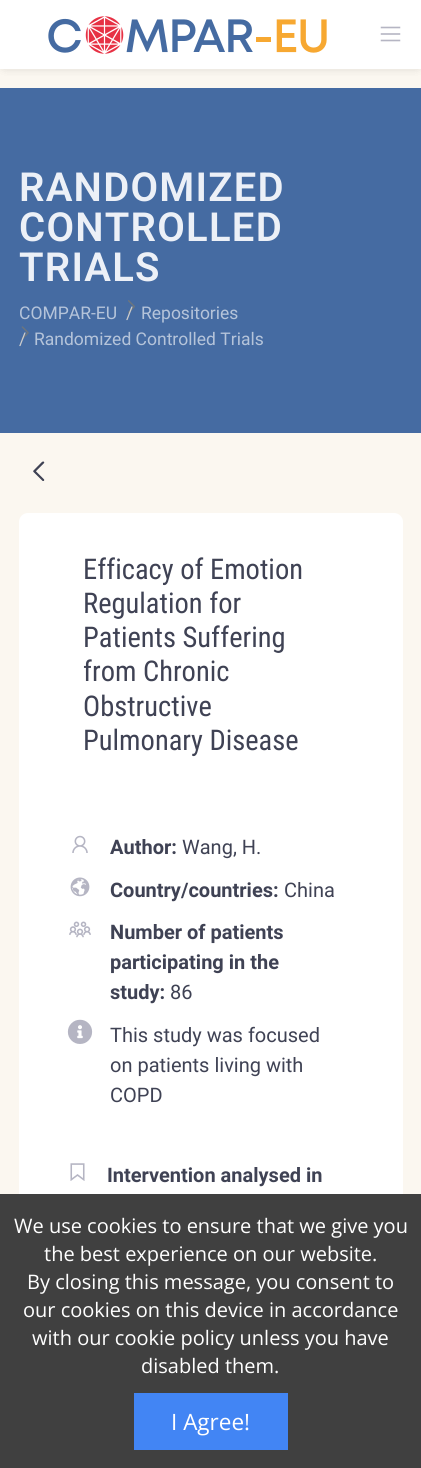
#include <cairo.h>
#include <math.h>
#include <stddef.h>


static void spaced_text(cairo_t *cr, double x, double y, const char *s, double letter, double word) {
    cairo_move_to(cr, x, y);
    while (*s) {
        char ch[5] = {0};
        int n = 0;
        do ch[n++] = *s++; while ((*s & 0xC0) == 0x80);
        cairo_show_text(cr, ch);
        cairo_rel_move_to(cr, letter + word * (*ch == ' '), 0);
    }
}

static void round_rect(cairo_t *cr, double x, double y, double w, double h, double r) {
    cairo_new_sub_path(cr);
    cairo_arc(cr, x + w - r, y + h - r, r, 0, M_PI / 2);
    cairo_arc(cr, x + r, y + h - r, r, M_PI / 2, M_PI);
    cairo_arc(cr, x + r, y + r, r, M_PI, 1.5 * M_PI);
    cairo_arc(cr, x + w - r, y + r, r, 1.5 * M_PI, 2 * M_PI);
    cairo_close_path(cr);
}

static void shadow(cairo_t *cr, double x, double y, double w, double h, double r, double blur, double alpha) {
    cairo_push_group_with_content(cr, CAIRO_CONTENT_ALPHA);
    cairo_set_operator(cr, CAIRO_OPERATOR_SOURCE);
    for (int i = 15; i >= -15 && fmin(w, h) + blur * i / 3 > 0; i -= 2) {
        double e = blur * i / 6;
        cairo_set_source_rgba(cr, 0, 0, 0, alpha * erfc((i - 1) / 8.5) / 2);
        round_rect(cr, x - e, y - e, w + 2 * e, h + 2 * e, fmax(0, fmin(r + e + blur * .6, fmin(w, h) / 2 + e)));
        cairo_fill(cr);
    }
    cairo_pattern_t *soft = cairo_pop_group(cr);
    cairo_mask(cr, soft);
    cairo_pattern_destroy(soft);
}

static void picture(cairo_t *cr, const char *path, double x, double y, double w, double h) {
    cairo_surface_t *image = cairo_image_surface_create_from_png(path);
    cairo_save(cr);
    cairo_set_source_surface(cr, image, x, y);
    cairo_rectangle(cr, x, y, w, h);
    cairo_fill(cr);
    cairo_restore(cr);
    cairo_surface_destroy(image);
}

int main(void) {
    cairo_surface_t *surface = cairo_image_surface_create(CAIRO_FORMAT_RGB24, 421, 1468);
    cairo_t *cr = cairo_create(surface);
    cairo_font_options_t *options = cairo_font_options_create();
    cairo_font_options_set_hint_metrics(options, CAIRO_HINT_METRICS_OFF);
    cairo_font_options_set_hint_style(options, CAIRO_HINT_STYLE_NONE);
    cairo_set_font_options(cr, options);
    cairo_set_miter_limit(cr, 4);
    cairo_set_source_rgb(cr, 0.984, 0.965, 0.941);
    cairo_paint(cr);
    cairo_set_source_rgb(cr, 0, 0, 0);
    shadow(cr, 4, 5, 414, 61, 0, 5.5, 0.1);
    shadow(cr, 4, 5, 414, 61, 0, 5.5, 0.1);
    cairo_set_source_rgb(cr, 1, 1, 1);
    cairo_rectangle(cr, 0, 0, 421, 69);
    cairo_fill(cr);
    picture(cr, "img1.png", 48, 16, 279, 38);
    picture(cr, "img2.png", 380, 26, 21, 16);
    cairo_set_source_rgb(cr, 0.271, 0.42, 0.635);
    cairo_rectangle(cr, 0, 88, 421, 345);
    cairo_fill(cr);
    cairo_select_font_face(cr, "Roboto SemiBold", CAIRO_FONT_SLANT_NORMAL, CAIRO_FONT_WEIGHT_NORMAL);
    cairo_set_font_size(cr, 40);
    cairo_set_source_rgb(cr, 0.925, 0.941, 0.965);
    spaced_text(cr, 19, 201, "RANDOMIZED", 1.25, 0);
    spaced_text(cr, 19, 241, "CONTROLLED", 1.25, 0);
    spaced_text(cr, 19, 281, "TRIALS", 1.25, 0);
    cairo_select_font_face(cr, "Roboto", CAIRO_FONT_SLANT_NORMAL, CAIRO_FONT_WEIGHT_NORMAL);
    cairo_set_font_size(cr, 17.5);
    cairo_set_source_rgb(cr, 0.71, 0.769, 0.855);
    cairo_move_to(cr, 19, 319);
    cairo_show_text(cr, "COMPAR-EU");
    picture(cr, "img3.png", 128, 300, 7, 13);
    cairo_set_source_rgb(cr, 0.8, 0.8, 0.8);
    cairo_move_to(cr, 126, 319);
    cairo_show_text(cr, "/");
    cairo_set_source_rgb(cr, 0.71, 0.769, 0.855);
    cairo_move_to(cr, 141, 319);
    cairo_show_text(cr, "Repositories");
    picture(cr, "img4.png", 21, 326, 8, 14);
    cairo_set_source_rgb(cr, 0.8, 0.8, 0.8);
    cairo_move_to(cr, 19, 345);
    cairo_show_text(cr, "/");
    cairo_set_source_rgb(cr, 0.71, 0.769, 0.855);
    cairo_move_to(cr, 34, 345);
    cairo_show_text(cr, "Randomized Controlled Trials");
    picture(cr, "img5.png", 33, 461, 12, 20);
    cairo_set_source_rgb(cr, 1, 1, 1);
    round_rect(cr, 19, 513, 384, 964, 9);
    cairo_fill(cr);
    cairo_select_font_face(cr, "Roboto Condensed", CAIRO_FONT_SLANT_NORMAL, CAIRO_FONT_WEIGHT_NORMAL);
    cairo_set_font_size(cr, 28.5);
    cairo_set_source_rgb(cr, 0.247, 0.259, 0.329);
    cairo_move_to(cr, 83, 579);
    cairo_show_text(cr, "Efficacy of Emotion");
    cairo_move_to(cr, 83, 613);
    cairo_show_text(cr, "Regulation for");
    cairo_move_to(cr, 83, 647);
    cairo_show_text(cr, "Patients Suffering");
    cairo_move_to(cr, 83, 681);
    cairo_show_text(cr, "from Chronic");
    cairo_move_to(cr, 83, 716);
    cairo_show_text(cr, "Obstructive");
    cairo_move_to(cr, 83, 750);
    cairo_show_text(cr, "Pulmonary Disease");
    picture(cr, "img6.png", 72, 835, 16, 18);
    cairo_select_font_face(cr, "Roboto", CAIRO_FONT_SLANT_NORMAL, CAIRO_FONT_WEIGHT_BOLD);
    cairo_set_font_size(cr, 20);
    cairo_move_to(cr, 110, 854);
    cairo_show_text(cr, "Author:");
    cairo_select_font_face(cr, "Roboto", CAIRO_FONT_SLANT_NORMAL, CAIRO_FONT_WEIGHT_NORMAL);
    cairo_move_to(cr, 182, 854);
    cairo_show_text(cr, "Wang, H.");
    picture(cr, "img7.png", 70, 877, 20, 20);
    cairo_select_font_face(cr, "Roboto", CAIRO_FONT_SLANT_NORMAL, CAIRO_FONT_WEIGHT_BOLD);
    cairo_move_to(cr, 110, 897);
    cairo_show_text(cr, "Country/countries:");
    cairo_select_font_face(cr, "Roboto", CAIRO_FONT_SLANT_NORMAL, CAIRO_FONT_WEIGHT_NORMAL);
    cairo_move_to(cr, 284, 897);
    cairo_show_text(cr, "China");
    picture(cr, "img8.png", 69, 921, 22, 17);
    cairo_select_font_face(cr, "Roboto", CAIRO_FONT_SLANT_NORMAL, CAIRO_FONT_WEIGHT_BOLD);
    cairo_move_to(cr, 110, 939);
    cairo_show_text(cr, "Number of patients");
    cairo_move_to(cr, 110, 969);
    cairo_show_text(cr, "participating in the");
    cairo_move_to(cr, 110, 999);
    cairo_show_text(cr, "study:");
    cairo_select_font_face(cr, "Roboto", CAIRO_FONT_SLANT_NORMAL, CAIRO_FONT_WEIGHT_NORMAL);
    cairo_move_to(cr, 170, 999);
    cairo_show_text(cr, "86");
    picture(cr, "img9.png", 67, 1019, 26, 25);
    cairo_move_to(cr, 110, 1042);
    cairo_show_text(cr, "This study was focused");
    cairo_move_to(cr, 110, 1072);
    cairo_show_text(cr, "on patients living with");
    cairo_move_to(cr, 110, 1102);
    cairo_show_text(cr, "COPD");
    picture(cr, "img10.png", 70, 1163, 15, 18);
    cairo_select_font_face(cr, "Roboto", CAIRO_FONT_SLANT_NORMAL, CAIRO_FONT_WEIGHT_BOLD);
    cairo_move_to(cr, 107, 1182);
    cairo_show_text(cr, "Intervention analysed in");
    cairo_set_source_rgb(cr, 0.251, 0.251, 0.251);
    cairo_rectangle(cr, 0, 1194, 421, 274);
    cairo_fill(cr);
    cairo_select_font_face(cr, "Open Sans", CAIRO_FONT_SLANT_NORMAL, CAIRO_FONT_WEIGHT_NORMAL);
    cairo_set_source_rgb(cr, 1, 1, 1);
    cairo_move_to(cr, 14, 1233);
    cairo_show_text(cr, "We use cookies to ensure that we give you");
    cairo_move_to(cr, 44, 1261);
    cairo_show_text(cr, "the best experience on our website.");
    cairo_move_to(cr, 27, 1289);
    cairo_show_text(cr, "By closing this message, you consent to");
    cairo_move_to(cr, 23, 1317);
    cairo_show_text(cr, "our cookies on this device in accordance");
    cairo_move_to(cr, 32, 1345);
    cairo_show_text(cr, "with our cookie policy unless you have");
    cairo_move_to(cr, 141, 1373);
    cairo_show_text(cr, "disabled them.");
    cairo_set_source_rgb(cr, 0.259, 0.522, 0.957);
    cairo_rectangle(cr, 134, 1393, 154, 57);
    cairo_fill(cr);
    cairo_set_font_size(cr, 22.5);
    cairo_set_source_rgb(cr, 1, 1, 1);
    cairo_move_to(cr, 171, 1430);
    cairo_show_text(cr, "I Agree!");
    cairo_surface_write_to_png(surface, "page.png");
    cairo_font_options_destroy(options);
    cairo_destroy(cr);
    cairo_surface_destroy(surface);
    return 0;
}
